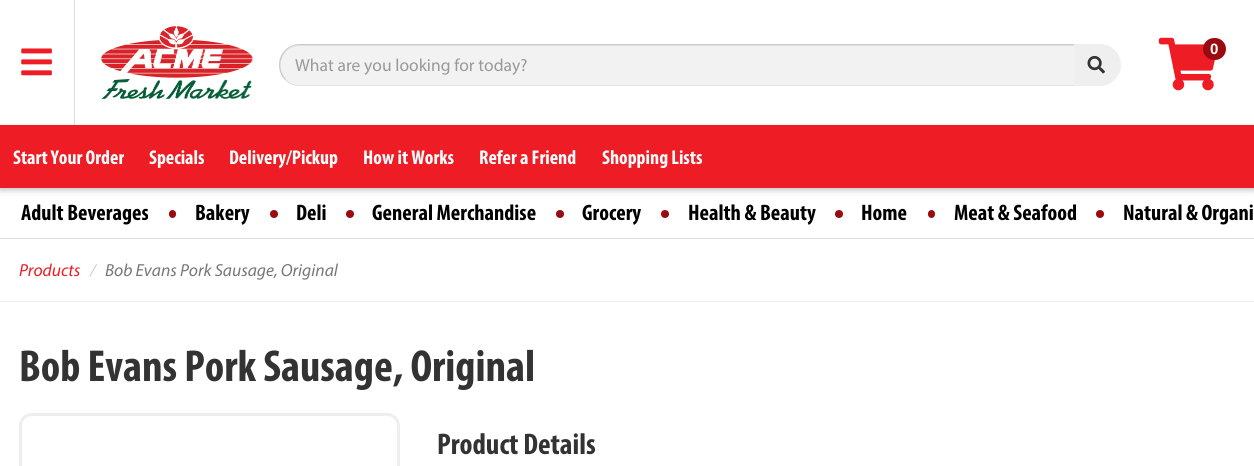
#include <cairo.h>
#include <math.h>
#include <stddef.h>


static void round_rect(cairo_t *cr, double x, double y, double w, double h, double r) {
    cairo_new_sub_path(cr);
    cairo_arc(cr, x + w - r, y + h - r, r, 0, M_PI / 2);
    cairo_arc(cr, x + r, y + h - r, r, M_PI / 2, M_PI);
    cairo_arc(cr, x + r, y + r, r, M_PI, 1.5 * M_PI);
    cairo_arc(cr, x + w - r, y + r, r, 1.5 * M_PI, 2 * M_PI);
    cairo_close_path(cr);
}

static void shadow(cairo_t *cr, double x, double y, double w, double h, double r, double blur, double alpha) {
    cairo_push_group_with_content(cr, CAIRO_CONTENT_ALPHA);
    cairo_set_operator(cr, CAIRO_OPERATOR_SOURCE);
    for (int i = 15; i >= -15 && fmin(w, h) + blur * i / 3 > 0; i -= 2) {
        double e = blur * i / 6;
        cairo_set_source_rgba(cr, 0, 0, 0, alpha * erfc((i - 1) / 8.5) / 2);
        round_rect(cr, x - e, y - e, w + 2 * e, h + 2 * e, fmax(0, fmin(r + e + blur * .6, fmin(w, h) / 2 + e)));
        cairo_fill(cr);
    }
    cairo_pattern_t *soft = cairo_pop_group(cr);
    cairo_mask(cr, soft);
    cairo_pattern_destroy(soft);
}

static void picture(cairo_t *cr, const char *path, double x, double y, double w, double h) {
    cairo_surface_t *image = cairo_image_surface_create_from_png(path);
    cairo_save(cr);
    cairo_set_source_surface(cr, image, x, y);
    cairo_rectangle(cr, x, y, w, h);
    cairo_fill(cr);
    cairo_restore(cr);
    cairo_surface_destroy(image);
}

int main(void) {
    cairo_surface_t *surface = cairo_image_surface_create(CAIRO_FORMAT_RGB24, 1254, 466);
    cairo_t *cr = cairo_create(surface);
    cairo_font_options_t *options = cairo_font_options_create();
    cairo_font_options_set_hint_metrics(options, CAIRO_HINT_METRICS_OFF);
    cairo_font_options_set_hint_style(options, CAIRO_HINT_STYLE_NONE);
    cairo_set_font_options(cr, options);
    cairo_set_miter_limit(cr, 4);
    cairo_set_source_rgb(cr, 1, 1, 1);
    cairo_paint(cr);
    cairo_set_source_rgb(cr, 0, 0, 0);
    shadow(cr, 0, 128, 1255, 62, 0, 3, 0.25);
    cairo_set_source_rgb(cr, 0.867, 0.867, 0.867);
    cairo_rectangle(cr, 74, 0, 1, 125);
    cairo_fill(cr);
    picture(cr, "img1.png", 21, 48, 31, 28);
    picture(cr, "img2.png", 101, 26, 152, 73);
    picture(cr, "img3.png", 1158, 37, 57, 54);
    cairo_set_source_rgb(cr, 0.6, 0.043, 0.067);
    round_rect(cr, 1203, 38, 23, 22, 11);
    cairo_fill(cr);
    cairo_select_font_face(cr, "Liberation Sans", CAIRO_FONT_SLANT_NORMAL, CAIRO_FONT_WEIGHT_BOLD);
    cairo_set_font_size(cr, 15);
    cairo_set_source_rgb(cr, 1, 1, 1);
    cairo_move_to(cr, 1210, 54);
    cairo_show_text(cr, "0");
    cairo_set_source_rgb(cr, 0.949, 0.949, 0.949);
    cairo_new_path(cr);
    cairo_move_to(cr, 300, 44);
    cairo_line_to(cr, 1075, 44);
    cairo_line_to(cr, 1075, 86);
    cairo_line_to(cr, 300, 86);
    cairo_curve_to(cr, 288.5, 86, 279, 76.5, 279, 65);
    cairo_curve_to(cr, 279, 53.5, 288.5, 44, 300, 44);
    cairo_close_path(cr);
    cairo_fill(cr);
    cairo_set_source_rgb(cr, 0.878, 0.878, 0.878);
    cairo_new_path(cr);
    cairo_move_to(cr, 300, 46);
    cairo_line_to(cr, 1074, 46);
    cairo_line_to(cr, 1074, 45);
    cairo_line_to(cr, 300, 45);
    cairo_curve_to(cr, 286, 45, 276, 60, 281, 72);
    cairo_curve_to(cr, 278, 61, 284, 46, 300, 46);
    cairo_close_path(cr);
    cairo_fill(cr);
    cairo_set_source_rgb(cr, 0.8, 0.8, 0.8);
    cairo_new_path(cr);
    cairo_move_to(cr, 300, 44);
    cairo_curve_to(cr, 294, 44, 289, 46, 285, 50);
    cairo_line_to(cr, 286, 51);
    cairo_curve_to(cr, 289, 47, 294, 45, 300, 45);
    cairo_line_to(cr, 1074, 45);
    cairo_line_to(cr, 1075, 44);
    cairo_close_path(cr);
    cairo_fill(cr);
    cairo_set_source_rgb(cr, 0.886, 0.886, 0.886);
    cairo_new_path(cr);
    cairo_move_to(cr, 1075, 86);
    cairo_line_to(cr, 300, 86);
    cairo_curve_to(cr, 294, 86, 289, 84, 285, 80);
    cairo_line_to(cr, 286, 79);
    cairo_curve_to(cr, 289, 83, 294, 85, 300, 85);
    cairo_line_to(cr, 1074, 85);
    cairo_close_path(cr);
    cairo_fill(cr);
    cairo_set_source_rgb(cr, 0.8, 0.8, 0.8);
    cairo_new_path(cr);
    cairo_move_to(cr, 285, 50);
    cairo_curve_to(cr, 277, 58, 277, 72, 285, 80);
    cairo_line_to(cr, 286, 79);
    cairo_curve_to(cr, 278.5, 71.5, 278.5, 58.5, 286, 51);
    cairo_close_path(cr);
    cairo_fill(cr);
    cairo_select_font_face(cr, "Myriad", CAIRO_FONT_SLANT_NORMAL, CAIRO_FONT_WEIGHT_NORMAL);
    cairo_set_font_size(cr, 17.5);
    cairo_set_source_rgb(cr, 0.6, 0.6, 0.6);
    cairo_move_to(cr, 295, 71);
    cairo_show_text(cr, "What are you looking for today?");
    cairo_set_source_rgb(cr, 0.937, 0.937, 0.937);
    cairo_new_path(cr);
    cairo_move_to(cr, 1074, 44);
    cairo_line_to(cr, 1100, 44);
    cairo_curve_to(cr, 1111.5, 44, 1121, 53.5, 1121, 65);
    cairo_curve_to(cr, 1121, 76.5, 1111.5, 86, 1100, 86);
    cairo_line_to(cr, 1074, 86);
    cairo_close_path(cr);
    cairo_fill(cr);
    picture(cr, "img4.png", 1087, 55, 18, 19);
    cairo_set_source_rgb(cr, 0.933, 0.11, 0.141);
    cairo_rectangle(cr, 0, 125, 1254, 63);
    cairo_fill(cr);
    cairo_select_font_face(cr, "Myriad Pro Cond", CAIRO_FONT_SLANT_NORMAL, CAIRO_FONT_WEIGHT_BOLD);
    cairo_set_font_size(cr, 20);
    cairo_set_source_rgb(cr, 1, 1, 1);
    cairo_move_to(cr, 13, 164);
    cairo_show_text(cr, "Start Your Order");
    cairo_move_to(cr, 149, 164);
    cairo_show_text(cr, "Specials");
    cairo_move_to(cr, 229, 164);
    cairo_show_text(cr, "Delivery/Pickup");
    cairo_move_to(cr, 363, 164);
    cairo_show_text(cr, "How it Works");
    cairo_move_to(cr, 479, 164);
    cairo_show_text(cr, "Refer a Friend");
    cairo_move_to(cr, 602, 164);
    cairo_show_text(cr, "Shopping Lists");
    cairo_set_font_size(cr, 22.5);
    cairo_set_source_rgb(cr, 0, 0, 0);
    cairo_move_to(cr, 21, 220);
    cairo_show_text(cr, "Adult Beverages");
    cairo_set_source_rgb(cr, 0.6, 0.043, 0.067);
    round_rect(cr, 169, 210, 7, 8, 3.5);
    cairo_fill(cr);
    cairo_set_source_rgb(cr, 0, 0, 0);
    cairo_move_to(cr, 195, 220);
    cairo_show_text(cr, "Bakery");
    cairo_set_source_rgb(cr, 0.6, 0.043, 0.067);
    cairo_new_path(cr);
    cairo_arc(cr, 274, 214, 4, 0, 2 * M_PI);
    cairo_fill(cr);
    cairo_set_source_rgb(cr, 0, 0, 0);
    cairo_move_to(cr, 296, 220);
    cairo_show_text(cr, "Deli");
    cairo_set_source_rgb(cr, 0.6, 0.043, 0.067);
    cairo_new_path(cr);
    cairo_arc(cr, 350, 214, 4, 0, 2 * M_PI);
    cairo_fill(cr);
    cairo_set_source_rgb(cr, 0, 0, 0);
    cairo_move_to(cr, 372, 220);
    cairo_show_text(cr, "General Merchandise");
    cairo_set_source_rgb(cr, 0.6, 0.043, 0.067);
    cairo_new_path(cr);
    cairo_arc(cr, 560, 214, 4, 0, 2 * M_PI);
    cairo_fill(cr);
    cairo_set_source_rgb(cr, 0, 0, 0);
    cairo_move_to(cr, 582, 220);
    cairo_show_text(cr, "Grocery");
    cairo_set_source_rgb(cr, 0.6, 0.043, 0.067);
    cairo_new_path(cr);
    cairo_arc(cr, 665, 214, 4, 0, 2 * M_PI);
    cairo_fill(cr);
    cairo_set_source_rgb(cr, 0, 0, 0);
    cairo_move_to(cr, 688, 220);
    cairo_show_text(cr, "Health & Beauty");
    cairo_set_source_rgb(cr, 0.6, 0.043, 0.067);
    cairo_new_path(cr);
    cairo_arc(cr, 839, 214, 4, 0, 2 * M_PI);
    cairo_fill(cr);
    cairo_set_source_rgb(cr, 0, 0, 0);
    cairo_move_to(cr, 861, 220);
    cairo_show_text(cr, "Home");
    cairo_set_source_rgb(cr, 0.6, 0.043, 0.067);
    round_rect(cr, 928, 210, 7, 8, 3.5);
    cairo_fill(cr);
    cairo_set_source_rgb(cr, 0, 0, 0);
    cairo_move_to(cr, 954, 220);
    cairo_show_text(cr, "Meat & Seafood");
    cairo_set_source_rgb(cr, 0.6, 0.043, 0.067);
    cairo_new_path(cr);
    cairo_arc(cr, 1100, 214, 4, 0, 2 * M_PI);
    cairo_fill(cr);
    cairo_set_source_rgb(cr, 0, 0, 0);
    cairo_move_to(cr, 1123, 220);
    cairo_show_text(cr, "Natural & Organi");
    cairo_set_source_rgb(cr, 0.867, 0.867, 0.867);
    cairo_rectangle(cr, 0, 238, 1254, 1);
    cairo_fill(cr);
    cairo_set_source_rgb(cr, 0.933, 0.933, 0.933);
    cairo_rectangle(cr, 0, 301, 1254, 1);
    cairo_fill(cr);
    cairo_select_font_face(cr, "Myriad", CAIRO_FONT_SLANT_ITALIC, CAIRO_FONT_WEIGHT_NORMAL);
    cairo_set_font_size(cr, 17.5);
    cairo_set_source_rgb(cr, 0.933, 0.11, 0.141);
    cairo_move_to(cr, 19, 276);
    cairo_show_text(cr, "Products");
    cairo_set_source_rgb(cr, 0.8, 0.8, 0.8);
    cairo_move_to(cr, 90, 276);
    cairo_show_text(cr, "/");
    cairo_set_source_rgb(cr, 0.467, 0.467, 0.467);
    cairo_move_to(cr, 105, 276);
    cairo_show_text(cr, "Bob Evans Pork Sausage, Original");
    cairo_select_font_face(cr, "Myriad Pro Cond", CAIRO_FONT_SLANT_NORMAL, CAIRO_FONT_WEIGHT_BOLD);
    cairo_set_font_size(cr, 45);
    cairo_set_source_rgb(cr, 0.2, 0.2, 0.2);
    cairo_move_to(cr, 19, 381);
    cairo_show_text(cr, "Bob Evans Pork Sausage, Original");
    round_rect(cr, 20.5, 414.5, 378, 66, 11.5);
    cairo_set_source_rgb(cr, 0.933, 0.933, 0.933);
    cairo_set_line_width(cr, 3);
    cairo_stroke(cr);
    cairo_set_font_size(cr, 30);
    cairo_set_source_rgb(cr, 0.2, 0.2, 0.2);
    cairo_move_to(cr, 437, 454);
    cairo_show_text(cr, "Product Details");
    cairo_surface_write_to_png(surface, "page.png");
    cairo_font_options_destroy(options);
    cairo_destroy(cr);
    cairo_surface_destroy(surface);
    return 0;
}
